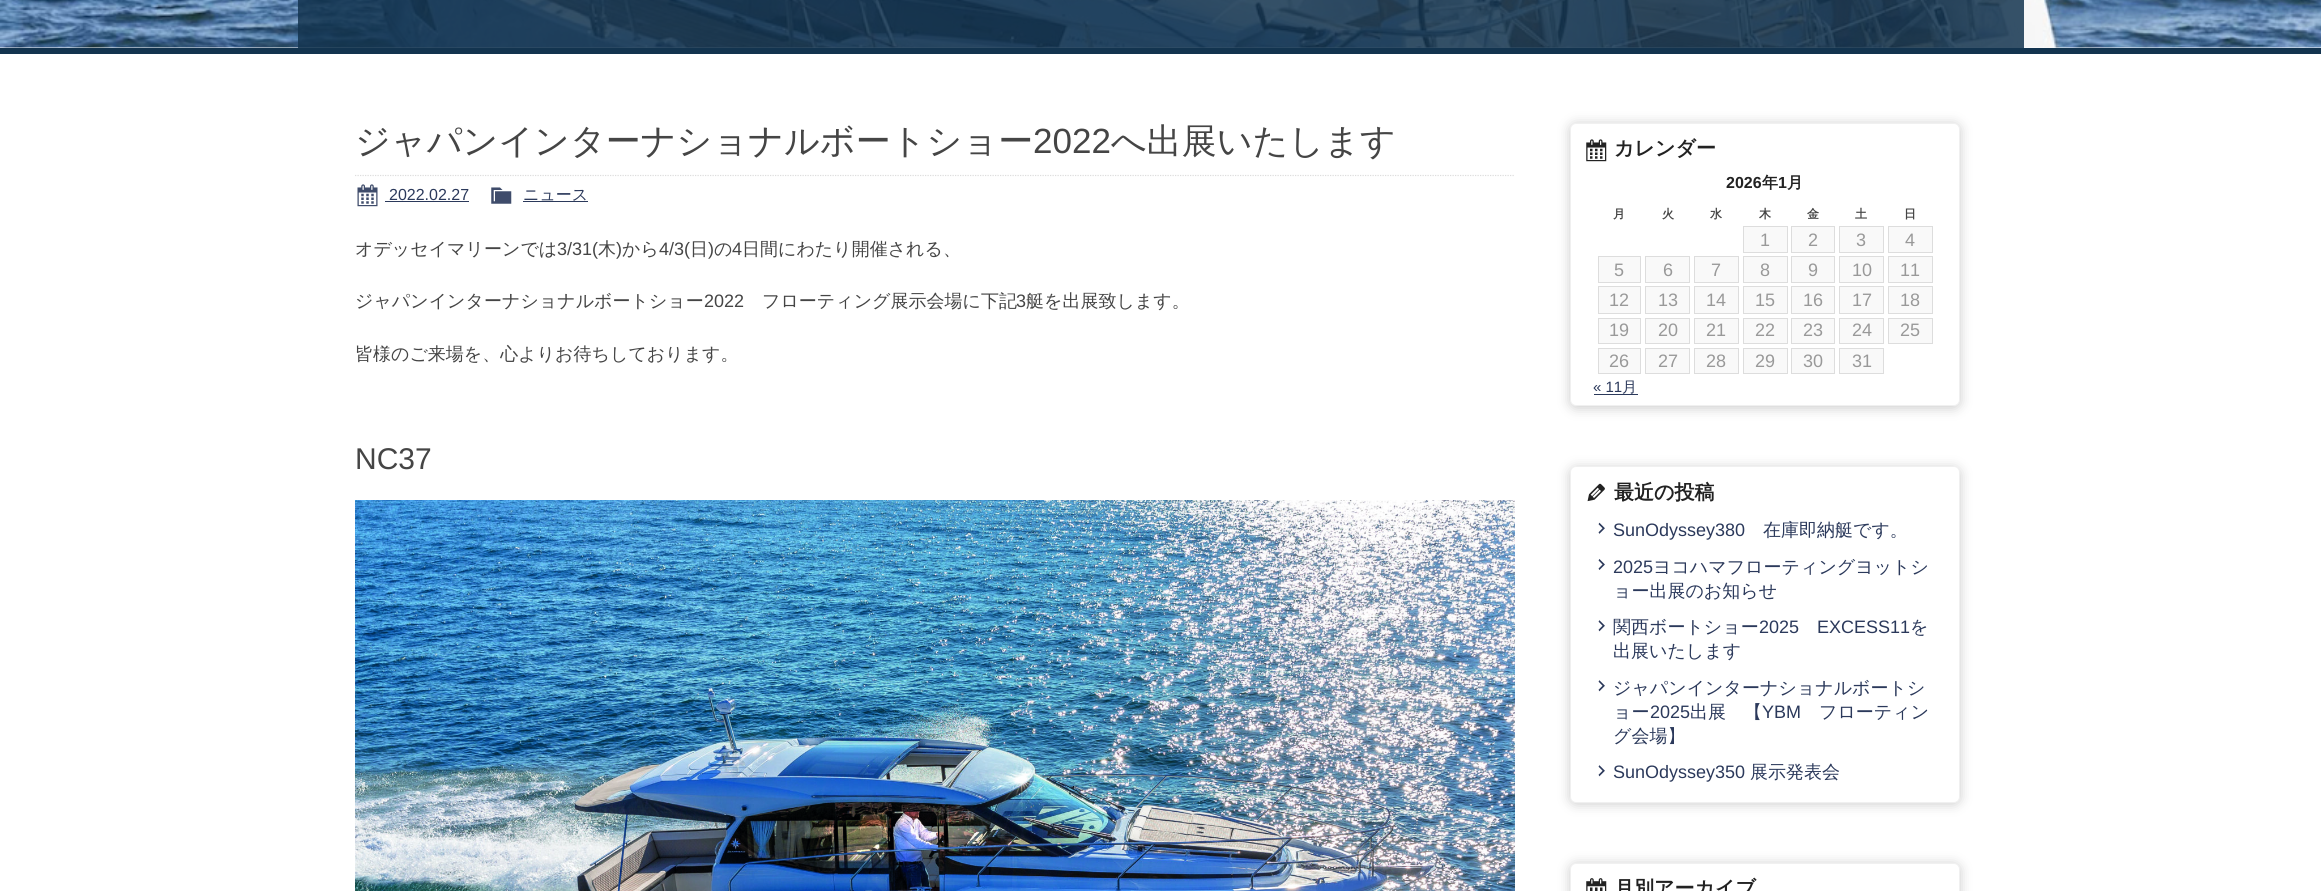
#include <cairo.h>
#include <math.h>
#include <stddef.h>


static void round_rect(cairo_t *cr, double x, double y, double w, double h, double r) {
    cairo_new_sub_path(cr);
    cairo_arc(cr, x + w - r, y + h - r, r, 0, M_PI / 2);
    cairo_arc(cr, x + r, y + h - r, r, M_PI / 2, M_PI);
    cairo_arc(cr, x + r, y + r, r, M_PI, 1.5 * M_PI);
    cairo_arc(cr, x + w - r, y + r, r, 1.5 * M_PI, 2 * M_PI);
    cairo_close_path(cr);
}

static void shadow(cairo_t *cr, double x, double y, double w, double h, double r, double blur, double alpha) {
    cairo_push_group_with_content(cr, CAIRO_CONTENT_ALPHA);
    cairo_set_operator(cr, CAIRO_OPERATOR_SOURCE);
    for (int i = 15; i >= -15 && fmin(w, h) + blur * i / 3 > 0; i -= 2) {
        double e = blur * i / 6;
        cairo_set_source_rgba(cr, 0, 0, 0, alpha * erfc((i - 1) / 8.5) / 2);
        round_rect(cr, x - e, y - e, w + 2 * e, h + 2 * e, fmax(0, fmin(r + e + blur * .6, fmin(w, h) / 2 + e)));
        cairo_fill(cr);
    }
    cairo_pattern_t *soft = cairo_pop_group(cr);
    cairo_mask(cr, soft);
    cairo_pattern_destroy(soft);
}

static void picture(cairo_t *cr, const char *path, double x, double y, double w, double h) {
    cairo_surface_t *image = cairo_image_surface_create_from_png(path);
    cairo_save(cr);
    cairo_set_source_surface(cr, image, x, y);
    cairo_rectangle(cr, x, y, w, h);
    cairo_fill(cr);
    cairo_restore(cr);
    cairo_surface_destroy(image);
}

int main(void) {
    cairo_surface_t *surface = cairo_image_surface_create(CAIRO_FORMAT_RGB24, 2321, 891);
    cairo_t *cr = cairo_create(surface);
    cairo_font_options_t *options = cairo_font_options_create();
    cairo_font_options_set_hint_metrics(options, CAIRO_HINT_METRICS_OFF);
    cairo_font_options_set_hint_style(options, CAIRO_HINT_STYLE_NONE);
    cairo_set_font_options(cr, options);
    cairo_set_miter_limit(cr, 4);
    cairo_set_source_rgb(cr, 1, 1, 1);
    cairo_paint(cr);
    picture(cr, "img1.png", 0, 0, 2321, 48);
    cairo_set_source_rgba(cr, 0.078, 0.204, 0.31, 0.85);
    cairo_rectangle(cr, 298, 0, 1726, 48);
    cairo_fill(cr);
    cairo_set_source_rgb(cr, 0.078, 0.204, 0.31);
    cairo_rectangle(cr, 0, 48, 2321, 6);
    cairo_fill(cr);
    cairo_select_font_face(cr, "WenQuanYi Zen Hei Medium", CAIRO_FONT_SLANT_NORMAL, CAIRO_FONT_WEIGHT_NORMAL);
    cairo_set_font_size(cr, 35);
    cairo_set_source_rgb(cr, 0.271, 0.271, 0.271);
    cairo_move_to(cr, 355, 153);
    cairo_show_text(cr, "ジャパンインターナショナルボートショー");
    cairo_select_font_face(cr, "Liberation Sans", CAIRO_FONT_SLANT_NORMAL, CAIRO_FONT_WEIGHT_NORMAL);
    cairo_move_to(cr, 1033, 153);
    cairo_show_text(cr, "2022");
    cairo_select_font_face(cr, "WenQuanYi Zen Hei Medium", CAIRO_FONT_SLANT_NORMAL, CAIRO_FONT_WEIGHT_NORMAL);
    cairo_move_to(cr, 1111, 153);
    cairo_show_text(cr, "へ出展いたします");
    cairo_new_path(cr);
    cairo_move_to(cr, 355, 175.5);
    cairo_line_to(cr, 1515, 175.5);
    cairo_set_source_rgb(cr, 0.867, 0.867, 0.867);
    cairo_set_line_width(cr, 1.2);
    cairo_set_dash(cr, (double[]){1.25, 1.25}, 2, 0);
    cairo_stroke(cr);
    picture(cr, "img2.png", 357, 184, 21, 23);
    cairo_select_font_face(cr, "Liberation Sans", CAIRO_FONT_SLANT_NORMAL, CAIRO_FONT_WEIGHT_NORMAL);
    cairo_set_font_size(cr, 16);
    cairo_set_source_rgb(cr, 0.169, 0.224, 0.357);
    cairo_move_to(cr, 389, 200);
    cairo_show_text(cr, "2022.02.27");
    cairo_rectangle(cr, 385, 201, 84, 1);
    cairo_fill(cr);
    picture(cr, "img3.png", 491, 187, 21, 17);
    cairo_select_font_face(cr, "WenQuanYi Zen Hei Medium", CAIRO_FONT_SLANT_NORMAL, CAIRO_FONT_WEIGHT_NORMAL);
    cairo_move_to(cr, 523, 200);
    cairo_show_text(cr, "ニュース");
    cairo_rectangle(cr, 523, 201, 65, 1);
    cairo_fill(cr);
    cairo_set_font_size(cr, 18);
    cairo_set_source_rgb(cr, 0.271, 0.271, 0.271);
    cairo_move_to(cr, 355, 255);
    cairo_show_text(cr, "オデッセイマリーンでは");
    cairo_select_font_face(cr, "Liberation Sans", CAIRO_FONT_SLANT_NORMAL, CAIRO_FONT_WEIGHT_NORMAL);
    cairo_move_to(cr, 557, 255);
    cairo_show_text(cr, "3/31(");
    cairo_select_font_face(cr, "WenQuanYi Zen Hei Medium", CAIRO_FONT_SLANT_NORMAL, CAIRO_FONT_WEIGHT_NORMAL);
    cairo_move_to(cr, 598, 255);
    cairo_show_text(cr, "木");
    cairo_select_font_face(cr, "Liberation Sans", CAIRO_FONT_SLANT_NORMAL, CAIRO_FONT_WEIGHT_NORMAL);
    cairo_move_to(cr, 616, 255);
    cairo_show_text(cr, ")");
    cairo_select_font_face(cr, "WenQuanYi Zen Hei Medium", CAIRO_FONT_SLANT_NORMAL, CAIRO_FONT_WEIGHT_NORMAL);
    cairo_move_to(cr, 622, 255);
    cairo_show_text(cr, "から");
    cairo_select_font_face(cr, "Liberation Sans", CAIRO_FONT_SLANT_NORMAL, CAIRO_FONT_WEIGHT_NORMAL);
    cairo_move_to(cr, 659, 255);
    cairo_show_text(cr, "4/3(");
    cairo_select_font_face(cr, "WenQuanYi Zen Hei Medium", CAIRO_FONT_SLANT_NORMAL, CAIRO_FONT_WEIGHT_NORMAL);
    cairo_move_to(cr, 690, 255);
    cairo_show_text(cr, "日");
    cairo_select_font_face(cr, "Liberation Sans", CAIRO_FONT_SLANT_NORMAL, CAIRO_FONT_WEIGHT_NORMAL);
    cairo_move_to(cr, 708, 255);
    cairo_show_text(cr, ")");
    cairo_select_font_face(cr, "WenQuanYi Zen Hei Medium", CAIRO_FONT_SLANT_NORMAL, CAIRO_FONT_WEIGHT_NORMAL);
    cairo_move_to(cr, 714, 255);
    cairo_show_text(cr, "の");
    cairo_select_font_face(cr, "Liberation Sans", CAIRO_FONT_SLANT_NORMAL, CAIRO_FONT_WEIGHT_NORMAL);
    cairo_move_to(cr, 732, 255);
    cairo_show_text(cr, "4");
    cairo_select_font_face(cr, "WenQuanYi Zen Hei Medium", CAIRO_FONT_SLANT_NORMAL, CAIRO_FONT_WEIGHT_NORMAL);
    cairo_move_to(cr, 742, 255);
    cairo_show_text(cr, "日間にわたり開催される、");
    cairo_move_to(cr, 355, 307);
    cairo_show_text(cr, "ジャパンインターナショナルボートショー");
    cairo_select_font_face(cr, "Liberation Sans", CAIRO_FONT_SLANT_NORMAL, CAIRO_FONT_WEIGHT_NORMAL);
    cairo_move_to(cr, 704, 307);
    cairo_show_text(cr, "2022");
    cairo_select_font_face(cr, "WenQuanYi Zen Hei Medium", CAIRO_FONT_SLANT_NORMAL, CAIRO_FONT_WEIGHT_NORMAL);
    cairo_move_to(cr, 762, 307);
    cairo_show_text(cr, "フローティング展示会場に下記");
    cairo_select_font_face(cr, "Liberation Sans", CAIRO_FONT_SLANT_NORMAL, CAIRO_FONT_WEIGHT_NORMAL);
    cairo_move_to(cr, 1016, 307);
    cairo_show_text(cr, "3");
    cairo_select_font_face(cr, "WenQuanYi Zen Hei Medium", CAIRO_FONT_SLANT_NORMAL, CAIRO_FONT_WEIGHT_NORMAL);
    cairo_move_to(cr, 1026, 307);
    cairo_show_text(cr, "艇を出展致します。");
    cairo_move_to(cr, 355, 360);
    cairo_show_text(cr, "皆様のご来場を、心よりお待ちしております。");
    cairo_select_font_face(cr, "Liberation Sans", CAIRO_FONT_SLANT_NORMAL, CAIRO_FONT_WEIGHT_NORMAL);
    cairo_set_font_size(cr, 30);
    cairo_move_to(cr, 355, 469);
    cairo_show_text(cr, "NC37");
    picture(cr, "img4.png", 355, 500, 1160, 391);
    cairo_set_source_rgb(cr, 0.8, 0.8, 0.8);
    shadow(cr, 1570, 124, 390, 284, 6, 6, 1);
    cairo_set_source_rgb(cr, 1, 1, 1);
    round_rect(cr, 1570.5, 123.5, 389, 282, 5.5);
    cairo_fill_preserve(cr);
    cairo_set_source_rgb(cr, 0.941, 0.941, 0.941);
    cairo_set_line_width(cr, 1);
    cairo_set_dash(cr, NULL, 0, 0);
    cairo_stroke(cr);
    picture(cr, "img5.png", 1586, 139, 21, 23);
    cairo_select_font_face(cr, "WenQuanYi Zen Hei", CAIRO_FONT_SLANT_NORMAL, CAIRO_FONT_WEIGHT_BOLD);
    cairo_set_font_size(cr, 20);
    cairo_set_source_rgb(cr, 0.133, 0.133, 0.133);
    cairo_move_to(cr, 1614, 155);
    cairo_show_text(cr, "カレンダー");
    cairo_select_font_face(cr, "Liberation Sans", CAIRO_FONT_SLANT_NORMAL, CAIRO_FONT_WEIGHT_BOLD);
    cairo_set_font_size(cr, 16);
    cairo_move_to(cr, 1726, 188);
    cairo_show_text(cr, "2026");
    cairo_select_font_face(cr, "WenQuanYi Zen Hei", CAIRO_FONT_SLANT_NORMAL, CAIRO_FONT_WEIGHT_BOLD);
    cairo_move_to(cr, 1762, 188);
    cairo_show_text(cr, "年");
    cairo_select_font_face(cr, "Liberation Sans", CAIRO_FONT_SLANT_NORMAL, CAIRO_FONT_WEIGHT_BOLD);
    cairo_move_to(cr, 1778, 188);
    cairo_show_text(cr, "1");
    cairo_select_font_face(cr, "WenQuanYi Zen Hei", CAIRO_FONT_SLANT_NORMAL, CAIRO_FONT_WEIGHT_BOLD);
    cairo_move_to(cr, 1787, 188);
    cairo_show_text(cr, "月");
    cairo_set_font_size(cr, 12);
    cairo_set_source_rgb(cr, 0.271, 0.271, 0.271);
    cairo_move_to(cr, 1613, 218);
    cairo_show_text(cr, "月");
    cairo_move_to(cr, 1662, 218);
    cairo_show_text(cr, "火");
    cairo_move_to(cr, 1710, 218);
    cairo_show_text(cr, "水");
    cairo_move_to(cr, 1759, 218);
    cairo_show_text(cr, "木");
    cairo_move_to(cr, 1807, 218);
    cairo_show_text(cr, "金");
    cairo_move_to(cr, 1855, 218);
    cairo_show_text(cr, "土");
    cairo_move_to(cr, 1904, 218);
    cairo_show_text(cr, "日");
    cairo_set_source_rgb(cr, 0.973, 0.973, 0.973);
    cairo_rectangle(cr, 1743.5, 226.5, 44, 26);
    cairo_fill_preserve(cr);
    cairo_set_source_rgb(cr, 0.867, 0.867, 0.867);
    cairo_stroke(cr);
    cairo_select_font_face(cr, "Liberation Sans", CAIRO_FONT_SLANT_NORMAL, CAIRO_FONT_WEIGHT_NORMAL);
    cairo_set_font_size(cr, 18);
    cairo_set_source_rgb(cr, 0.6, 0.6, 0.6);
    cairo_move_to(cr, 1760, 246);
    cairo_show_text(cr, "1");
    cairo_set_source_rgb(cr, 0.973, 0.973, 0.973);
    cairo_rectangle(cr, 1791.5, 226.5, 43, 26);
    cairo_fill_preserve(cr);
    cairo_set_source_rgb(cr, 0.867, 0.867, 0.867);
    cairo_stroke(cr);
    cairo_set_source_rgb(cr, 0.6, 0.6, 0.6);
    cairo_move_to(cr, 1808, 246);
    cairo_show_text(cr, "2");
    cairo_set_source_rgb(cr, 0.973, 0.973, 0.973);
    cairo_rectangle(cr, 1839.5, 226.5, 44, 26);
    cairo_fill_preserve(cr);
    cairo_set_source_rgb(cr, 0.867, 0.867, 0.867);
    cairo_stroke(cr);
    cairo_set_source_rgb(cr, 0.6, 0.6, 0.6);
    cairo_move_to(cr, 1856, 246);
    cairo_show_text(cr, "3");
    cairo_set_source_rgb(cr, 0.973, 0.973, 0.973);
    cairo_rectangle(cr, 1888.5, 226.5, 44, 26);
    cairo_fill_preserve(cr);
    cairo_set_source_rgb(cr, 0.867, 0.867, 0.867);
    cairo_stroke(cr);
    cairo_set_source_rgb(cr, 0.6, 0.6, 0.6);
    cairo_move_to(cr, 1905, 246);
    cairo_show_text(cr, "4");
    cairo_set_source_rgb(cr, 0.973, 0.973, 0.973);
    cairo_rectangle(cr, 1598.5, 256.5, 42, 26);
    cairo_fill_preserve(cr);
    cairo_set_source_rgb(cr, 0.867, 0.867, 0.867);
    cairo_stroke(cr);
    cairo_set_source_rgb(cr, 0.6, 0.6, 0.6);
    cairo_move_to(cr, 1614, 276);
    cairo_show_text(cr, "5");
    cairo_set_source_rgb(cr, 0.973, 0.973, 0.973);
    cairo_rectangle(cr, 1645.5, 256.5, 44, 26);
    cairo_fill_preserve(cr);
    cairo_set_source_rgb(cr, 0.867, 0.867, 0.867);
    cairo_stroke(cr);
    cairo_set_source_rgb(cr, 0.6, 0.6, 0.6);
    cairo_move_to(cr, 1663, 276);
    cairo_show_text(cr, "6");
    cairo_set_source_rgb(cr, 0.973, 0.973, 0.973);
    cairo_rectangle(cr, 1694.5, 256.5, 44, 26);
    cairo_fill_preserve(cr);
    cairo_set_source_rgb(cr, 0.867, 0.867, 0.867);
    cairo_stroke(cr);
    cairo_set_source_rgb(cr, 0.6, 0.6, 0.6);
    cairo_move_to(cr, 1711, 276);
    cairo_show_text(cr, "7");
    cairo_set_source_rgb(cr, 0.973, 0.973, 0.973);
    cairo_rectangle(cr, 1743.5, 256.5, 44, 26);
    cairo_fill_preserve(cr);
    cairo_set_source_rgb(cr, 0.867, 0.867, 0.867);
    cairo_stroke(cr);
    cairo_set_source_rgb(cr, 0.6, 0.6, 0.6);
    cairo_move_to(cr, 1760, 276);
    cairo_show_text(cr, "8");
    cairo_set_source_rgb(cr, 0.973, 0.973, 0.973);
    cairo_rectangle(cr, 1791.5, 256.5, 43, 26);
    cairo_fill_preserve(cr);
    cairo_set_source_rgb(cr, 0.867, 0.867, 0.867);
    cairo_stroke(cr);
    cairo_set_source_rgb(cr, 0.6, 0.6, 0.6);
    cairo_move_to(cr, 1808, 276);
    cairo_show_text(cr, "9");
    cairo_set_source_rgb(cr, 0.973, 0.973, 0.973);
    cairo_rectangle(cr, 1839.5, 256.5, 44, 26);
    cairo_fill_preserve(cr);
    cairo_set_source_rgb(cr, 0.867, 0.867, 0.867);
    cairo_stroke(cr);
    cairo_set_source_rgb(cr, 0.6, 0.6, 0.6);
    cairo_move_to(cr, 1852, 276);
    cairo_show_text(cr, "10");
    cairo_set_source_rgb(cr, 0.973, 0.973, 0.973);
    cairo_rectangle(cr, 1888.5, 256.5, 44, 26);
    cairo_fill_preserve(cr);
    cairo_set_source_rgb(cr, 0.867, 0.867, 0.867);
    cairo_stroke(cr);
    cairo_set_source_rgb(cr, 0.6, 0.6, 0.6);
    cairo_move_to(cr, 1900, 276);
    cairo_show_text(cr, "11");
    cairo_set_source_rgb(cr, 0.973, 0.973, 0.973);
    cairo_rectangle(cr, 1598.5, 286.5, 42, 27);
    cairo_fill_preserve(cr);
    cairo_set_source_rgb(cr, 0.867, 0.867, 0.867);
    cairo_stroke(cr);
    cairo_set_source_rgb(cr, 0.6, 0.6, 0.6);
    cairo_move_to(cr, 1609, 306);
    cairo_show_text(cr, "12");
    cairo_set_source_rgb(cr, 0.973, 0.973, 0.973);
    cairo_rectangle(cr, 1645.5, 286.5, 44, 27);
    cairo_fill_preserve(cr);
    cairo_set_source_rgb(cr, 0.867, 0.867, 0.867);
    cairo_stroke(cr);
    cairo_set_source_rgb(cr, 0.6, 0.6, 0.6);
    cairo_move_to(cr, 1658, 306);
    cairo_show_text(cr, "13");
    cairo_set_source_rgb(cr, 0.973, 0.973, 0.973);
    cairo_rectangle(cr, 1694.5, 286.5, 44, 27);
    cairo_fill_preserve(cr);
    cairo_set_source_rgb(cr, 0.867, 0.867, 0.867);
    cairo_stroke(cr);
    cairo_set_source_rgb(cr, 0.6, 0.6, 0.6);
    cairo_move_to(cr, 1706, 306);
    cairo_show_text(cr, "14");
    cairo_set_source_rgb(cr, 0.973, 0.973, 0.973);
    cairo_rectangle(cr, 1743.5, 286.5, 44, 27);
    cairo_fill_preserve(cr);
    cairo_set_source_rgb(cr, 0.867, 0.867, 0.867);
    cairo_stroke(cr);
    cairo_set_source_rgb(cr, 0.6, 0.6, 0.6);
    cairo_move_to(cr, 1755, 306);
    cairo_show_text(cr, "15");
    cairo_set_source_rgb(cr, 0.973, 0.973, 0.973);
    cairo_rectangle(cr, 1791.5, 286.5, 43, 27);
    cairo_fill_preserve(cr);
    cairo_set_source_rgb(cr, 0.867, 0.867, 0.867);
    cairo_stroke(cr);
    cairo_set_source_rgb(cr, 0.6, 0.6, 0.6);
    cairo_move_to(cr, 1803, 306);
    cairo_show_text(cr, "16");
    cairo_set_source_rgb(cr, 0.973, 0.973, 0.973);
    cairo_rectangle(cr, 1839.5, 286.5, 44, 27);
    cairo_fill_preserve(cr);
    cairo_set_source_rgb(cr, 0.867, 0.867, 0.867);
    cairo_stroke(cr);
    cairo_set_source_rgb(cr, 0.6, 0.6, 0.6);
    cairo_move_to(cr, 1852, 306);
    cairo_show_text(cr, "17");
    cairo_set_source_rgb(cr, 0.973, 0.973, 0.973);
    cairo_rectangle(cr, 1888.5, 286.5, 44, 27);
    cairo_fill_preserve(cr);
    cairo_set_source_rgb(cr, 0.867, 0.867, 0.867);
    cairo_stroke(cr);
    cairo_set_source_rgb(cr, 0.6, 0.6, 0.6);
    cairo_move_to(cr, 1900, 306);
    cairo_show_text(cr, "18");
    cairo_set_source_rgb(cr, 0.973, 0.973, 0.973);
    cairo_rectangle(cr, 1598.5, 318.5, 42, 25);
    cairo_fill_preserve(cr);
    cairo_set_source_rgb(cr, 0.867, 0.867, 0.867);
    cairo_stroke(cr);
    cairo_set_source_rgb(cr, 0.6, 0.6, 0.6);
    cairo_move_to(cr, 1609, 336);
    cairo_show_text(cr, "19");
    cairo_set_source_rgb(cr, 0.973, 0.973, 0.973);
    cairo_rectangle(cr, 1645.5, 318.5, 44, 25);
    cairo_fill_preserve(cr);
    cairo_set_source_rgb(cr, 0.867, 0.867, 0.867);
    cairo_stroke(cr);
    cairo_set_source_rgb(cr, 0.6, 0.6, 0.6);
    cairo_move_to(cr, 1658, 336);
    cairo_show_text(cr, "20");
    cairo_set_source_rgb(cr, 0.973, 0.973, 0.973);
    cairo_rectangle(cr, 1694.5, 318.5, 44, 25);
    cairo_fill_preserve(cr);
    cairo_set_source_rgb(cr, 0.867, 0.867, 0.867);
    cairo_stroke(cr);
    cairo_set_source_rgb(cr, 0.6, 0.6, 0.6);
    cairo_move_to(cr, 1706, 336);
    cairo_show_text(cr, "21");
    cairo_set_source_rgb(cr, 0.973, 0.973, 0.973);
    cairo_rectangle(cr, 1743.5, 318.5, 44, 25);
    cairo_fill_preserve(cr);
    cairo_set_source_rgb(cr, 0.867, 0.867, 0.867);
    cairo_stroke(cr);
    cairo_set_source_rgb(cr, 0.6, 0.6, 0.6);
    cairo_move_to(cr, 1755, 336);
    cairo_show_text(cr, "22");
    cairo_set_source_rgb(cr, 0.973, 0.973, 0.973);
    cairo_rectangle(cr, 1791.5, 318.5, 43, 25);
    cairo_fill_preserve(cr);
    cairo_set_source_rgb(cr, 0.867, 0.867, 0.867);
    cairo_stroke(cr);
    cairo_set_source_rgb(cr, 0.6, 0.6, 0.6);
    cairo_move_to(cr, 1803, 336);
    cairo_show_text(cr, "23");
    cairo_set_source_rgb(cr, 0.973, 0.973, 0.973);
    cairo_rectangle(cr, 1839.5, 318.5, 44, 25);
    cairo_fill_preserve(cr);
    cairo_set_source_rgb(cr, 0.867, 0.867, 0.867);
    cairo_stroke(cr);
    cairo_set_source_rgb(cr, 0.6, 0.6, 0.6);
    cairo_move_to(cr, 1852, 336);
    cairo_show_text(cr, "24");
    cairo_set_source_rgb(cr, 0.973, 0.973, 0.973);
    cairo_rectangle(cr, 1888.5, 318.5, 44, 25);
    cairo_fill_preserve(cr);
    cairo_set_source_rgb(cr, 0.867, 0.867, 0.867);
    cairo_stroke(cr);
    cairo_set_source_rgb(cr, 0.6, 0.6, 0.6);
    cairo_move_to(cr, 1900, 336);
    cairo_show_text(cr, "25");
    cairo_set_source_rgb(cr, 0.973, 0.973, 0.973);
    cairo_rectangle(cr, 1598.5, 348.5, 42, 25);
    cairo_fill_preserve(cr);
    cairo_set_source_rgb(cr, 0.867, 0.867, 0.867);
    cairo_stroke(cr);
    cairo_set_source_rgb(cr, 0.6, 0.6, 0.6);
    cairo_move_to(cr, 1609, 367);
    cairo_show_text(cr, "26");
    cairo_set_source_rgb(cr, 0.973, 0.973, 0.973);
    cairo_rectangle(cr, 1645.5, 348.5, 44, 25);
    cairo_fill_preserve(cr);
    cairo_set_source_rgb(cr, 0.867, 0.867, 0.867);
    cairo_stroke(cr);
    cairo_set_source_rgb(cr, 0.6, 0.6, 0.6);
    cairo_move_to(cr, 1658, 367);
    cairo_show_text(cr, "27");
    cairo_set_source_rgb(cr, 0.973, 0.973, 0.973);
    cairo_rectangle(cr, 1694.5, 348.5, 44, 25);
    cairo_fill_preserve(cr);
    cairo_set_source_rgb(cr, 0.867, 0.867, 0.867);
    cairo_stroke(cr);
    cairo_set_source_rgb(cr, 0.6, 0.6, 0.6);
    cairo_move_to(cr, 1706, 367);
    cairo_show_text(cr, "28");
    cairo_set_source_rgb(cr, 0.973, 0.973, 0.973);
    cairo_rectangle(cr, 1743.5, 348.5, 44, 25);
    cairo_fill_preserve(cr);
    cairo_set_source_rgb(cr, 0.867, 0.867, 0.867);
    cairo_stroke(cr);
    cairo_set_source_rgb(cr, 0.6, 0.6, 0.6);
    cairo_move_to(cr, 1755, 367);
    cairo_show_text(cr, "29");
    cairo_set_source_rgb(cr, 0.973, 0.973, 0.973);
    cairo_rectangle(cr, 1791.5, 348.5, 43, 25);
    cairo_fill_preserve(cr);
    cairo_set_source_rgb(cr, 0.867, 0.867, 0.867);
    cairo_stroke(cr);
    cairo_set_source_rgb(cr, 0.6, 0.6, 0.6);
    cairo_move_to(cr, 1803, 367);
    cairo_show_text(cr, "30");
    cairo_set_source_rgb(cr, 0.973, 0.973, 0.973);
    cairo_rectangle(cr, 1839.5, 348.5, 44, 25);
    cairo_fill_preserve(cr);
    cairo_set_source_rgb(cr, 0.867, 0.867, 0.867);
    cairo_stroke(cr);
    cairo_set_source_rgb(cr, 0.6, 0.6, 0.6);
    cairo_move_to(cr, 1852, 367);
    cairo_show_text(cr, "31");
    cairo_set_font_size(cr, 15);
    cairo_set_source_rgb(cr, 0.169, 0.224, 0.357);
    cairo_move_to(cr, 1593, 392);
    cairo_show_text(cr, "« 11");
    cairo_select_font_face(cr, "WenQuanYi Zen Hei Medium", CAIRO_FONT_SLANT_NORMAL, CAIRO_FONT_WEIGHT_NORMAL);
    cairo_move_to(cr, 1622, 392);
    cairo_show_text(cr, "月");
    cairo_rectangle(cr, 1594, 394, 44, 1);
    cairo_fill(cr);
    cairo_set_source_rgb(cr, 0.8, 0.8, 0.8);
    shadow(cr, 1570, 468, 390, 336, 6, 6, 1);
    cairo_set_source_rgb(cr, 1, 1, 1);
    round_rect(cr, 1570.5, 466.5, 389, 336, 5.5);
    cairo_fill_preserve(cr);
    cairo_set_source_rgb(cr, 0.941, 0.941, 0.941);
    cairo_stroke(cr);
    picture(cr, "img6.png", 1587, 483, 18, 19);
    cairo_select_font_face(cr, "WenQuanYi Zen Hei", CAIRO_FONT_SLANT_NORMAL, CAIRO_FONT_WEIGHT_BOLD);
    cairo_set_font_size(cr, 20);
    cairo_set_source_rgb(cr, 0.133, 0.133, 0.133);
    cairo_move_to(cr, 1614, 499);
    cairo_show_text(cr, "最近の投稿");
    picture(cr, "img7.png", 1598, 522, 7, 12);
    cairo_select_font_face(cr, "Liberation Sans", CAIRO_FONT_SLANT_NORMAL, CAIRO_FONT_WEIGHT_NORMAL);
    cairo_set_font_size(cr, 18);
    cairo_set_source_rgb(cr, 0.169, 0.224, 0.357);
    cairo_move_to(cr, 1613, 536);
    cairo_show_text(cr, "SunOdyssey380");
    cairo_select_font_face(cr, "WenQuanYi Zen Hei Medium", CAIRO_FONT_SLANT_NORMAL, CAIRO_FONT_WEIGHT_NORMAL);
    cairo_move_to(cr, 1763, 536);
    cairo_show_text(cr, "在庫即納艇です。");
    picture(cr, "img8.png", 1598, 559, 7, 11);
    cairo_select_font_face(cr, "Liberation Sans", CAIRO_FONT_SLANT_NORMAL, CAIRO_FONT_WEIGHT_NORMAL);
    cairo_move_to(cr, 1613, 573);
    cairo_show_text(cr, "2025");
    cairo_select_font_face(cr, "WenQuanYi Zen Hei Medium", CAIRO_FONT_SLANT_NORMAL, CAIRO_FONT_WEIGHT_NORMAL);
    cairo_move_to(cr, 1653, 573);
    cairo_show_text(cr, "ヨコハマフローティングヨットシ");
    cairo_move_to(cr, 1613, 597);
    cairo_show_text(cr, "ョー出展のお知らせ");
    picture(cr, "img9.png", 1598, 620, 7, 12);
    cairo_move_to(cr, 1613, 633);
    cairo_show_text(cr, "関西ボートショー");
    cairo_select_font_face(cr, "Liberation Sans", CAIRO_FONT_SLANT_NORMAL, CAIRO_FONT_WEIGHT_NORMAL);
    cairo_move_to(cr, 1759, 633);
    cairo_show_text(cr, "2025");
    cairo_move_to(cr, 1817, 633);
    cairo_show_text(cr, "EXCESS11");
    cairo_select_font_face(cr, "WenQuanYi Zen Hei Medium", CAIRO_FONT_SLANT_NORMAL, CAIRO_FONT_WEIGHT_NORMAL);
    cairo_move_to(cr, 1910, 633);
    cairo_show_text(cr, "を");
    cairo_move_to(cr, 1613, 657);
    cairo_show_text(cr, "出展いたします");
    picture(cr, "img9.png", 1598, 680, 7, 12);
    cairo_move_to(cr, 1613, 694);
    cairo_show_text(cr, "ジャパンインターナショナルボートシ");
    cairo_move_to(cr, 1613, 718);
    cairo_show_text(cr, "ョー");
    cairo_select_font_face(cr, "Liberation Sans", CAIRO_FONT_SLANT_NORMAL, CAIRO_FONT_WEIGHT_NORMAL);
    cairo_move_to(cr, 1650, 718);
    cairo_show_text(cr, "2025");
    cairo_select_font_face(cr, "WenQuanYi Zen Hei Medium", CAIRO_FONT_SLANT_NORMAL, CAIRO_FONT_WEIGHT_NORMAL);
    cairo_move_to(cr, 1690, 718);
    cairo_show_text(cr, "出展　【");
    cairo_select_font_face(cr, "Liberation Sans", CAIRO_FONT_SLANT_NORMAL, CAIRO_FONT_WEIGHT_NORMAL);
    cairo_move_to(cr, 1762, 718);
    cairo_show_text(cr, "YBM");
    cairo_select_font_face(cr, "WenQuanYi Zen Hei Medium", CAIRO_FONT_SLANT_NORMAL, CAIRO_FONT_WEIGHT_NORMAL);
    cairo_move_to(cr, 1819, 718);
    cairo_show_text(cr, "フローティン");
    cairo_move_to(cr, 1613, 742);
    cairo_show_text(cr, "グ会場】");
    picture(cr, "img9.png", 1598, 765, 7, 12);
    cairo_select_font_face(cr, "Liberation Sans", CAIRO_FONT_SLANT_NORMAL, CAIRO_FONT_WEIGHT_NORMAL);
    cairo_move_to(cr, 1613, 778);
    cairo_show_text(cr, "SunOdyssey350");
    cairo_select_font_face(cr, "WenQuanYi Zen Hei Medium", CAIRO_FONT_SLANT_NORMAL, CAIRO_FONT_WEIGHT_NORMAL);
    cairo_move_to(cr, 1750, 778);
    cairo_show_text(cr, "展示発表会");
    cairo_set_source_rgb(cr, 0.8, 0.8, 0.8);
    shadow(cr, 1570, 864, 390, 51, 6, 6, 1);
    cairo_set_source_rgb(cr, 1, 1, 1);
    round_rect(cr, 1570.5, 863.5, 389, 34, 5.5);
    cairo_fill_preserve(cr);
    cairo_set_source_rgb(cr, 0.941, 0.941, 0.941);
    cairo_stroke(cr);
    picture(cr, "img10.png", 1586, 878, 21, 13);
    cairo_select_font_face(cr, "WenQuanYi Zen Hei", CAIRO_FONT_SLANT_NORMAL, CAIRO_FONT_WEIGHT_BOLD);
    cairo_set_font_size(cr, 20);
    cairo_set_source_rgb(cr, 0.133, 0.133, 0.133);
    cairo_move_to(cr, 1614, 895);
    cairo_show_text(cr, "月別アーカイブ");
    cairo_surface_write_to_png(surface, "page.png");
    cairo_font_options_destroy(options);
    cairo_destroy(cr);
    cairo_surface_destroy(surface);
    return 0;
}
